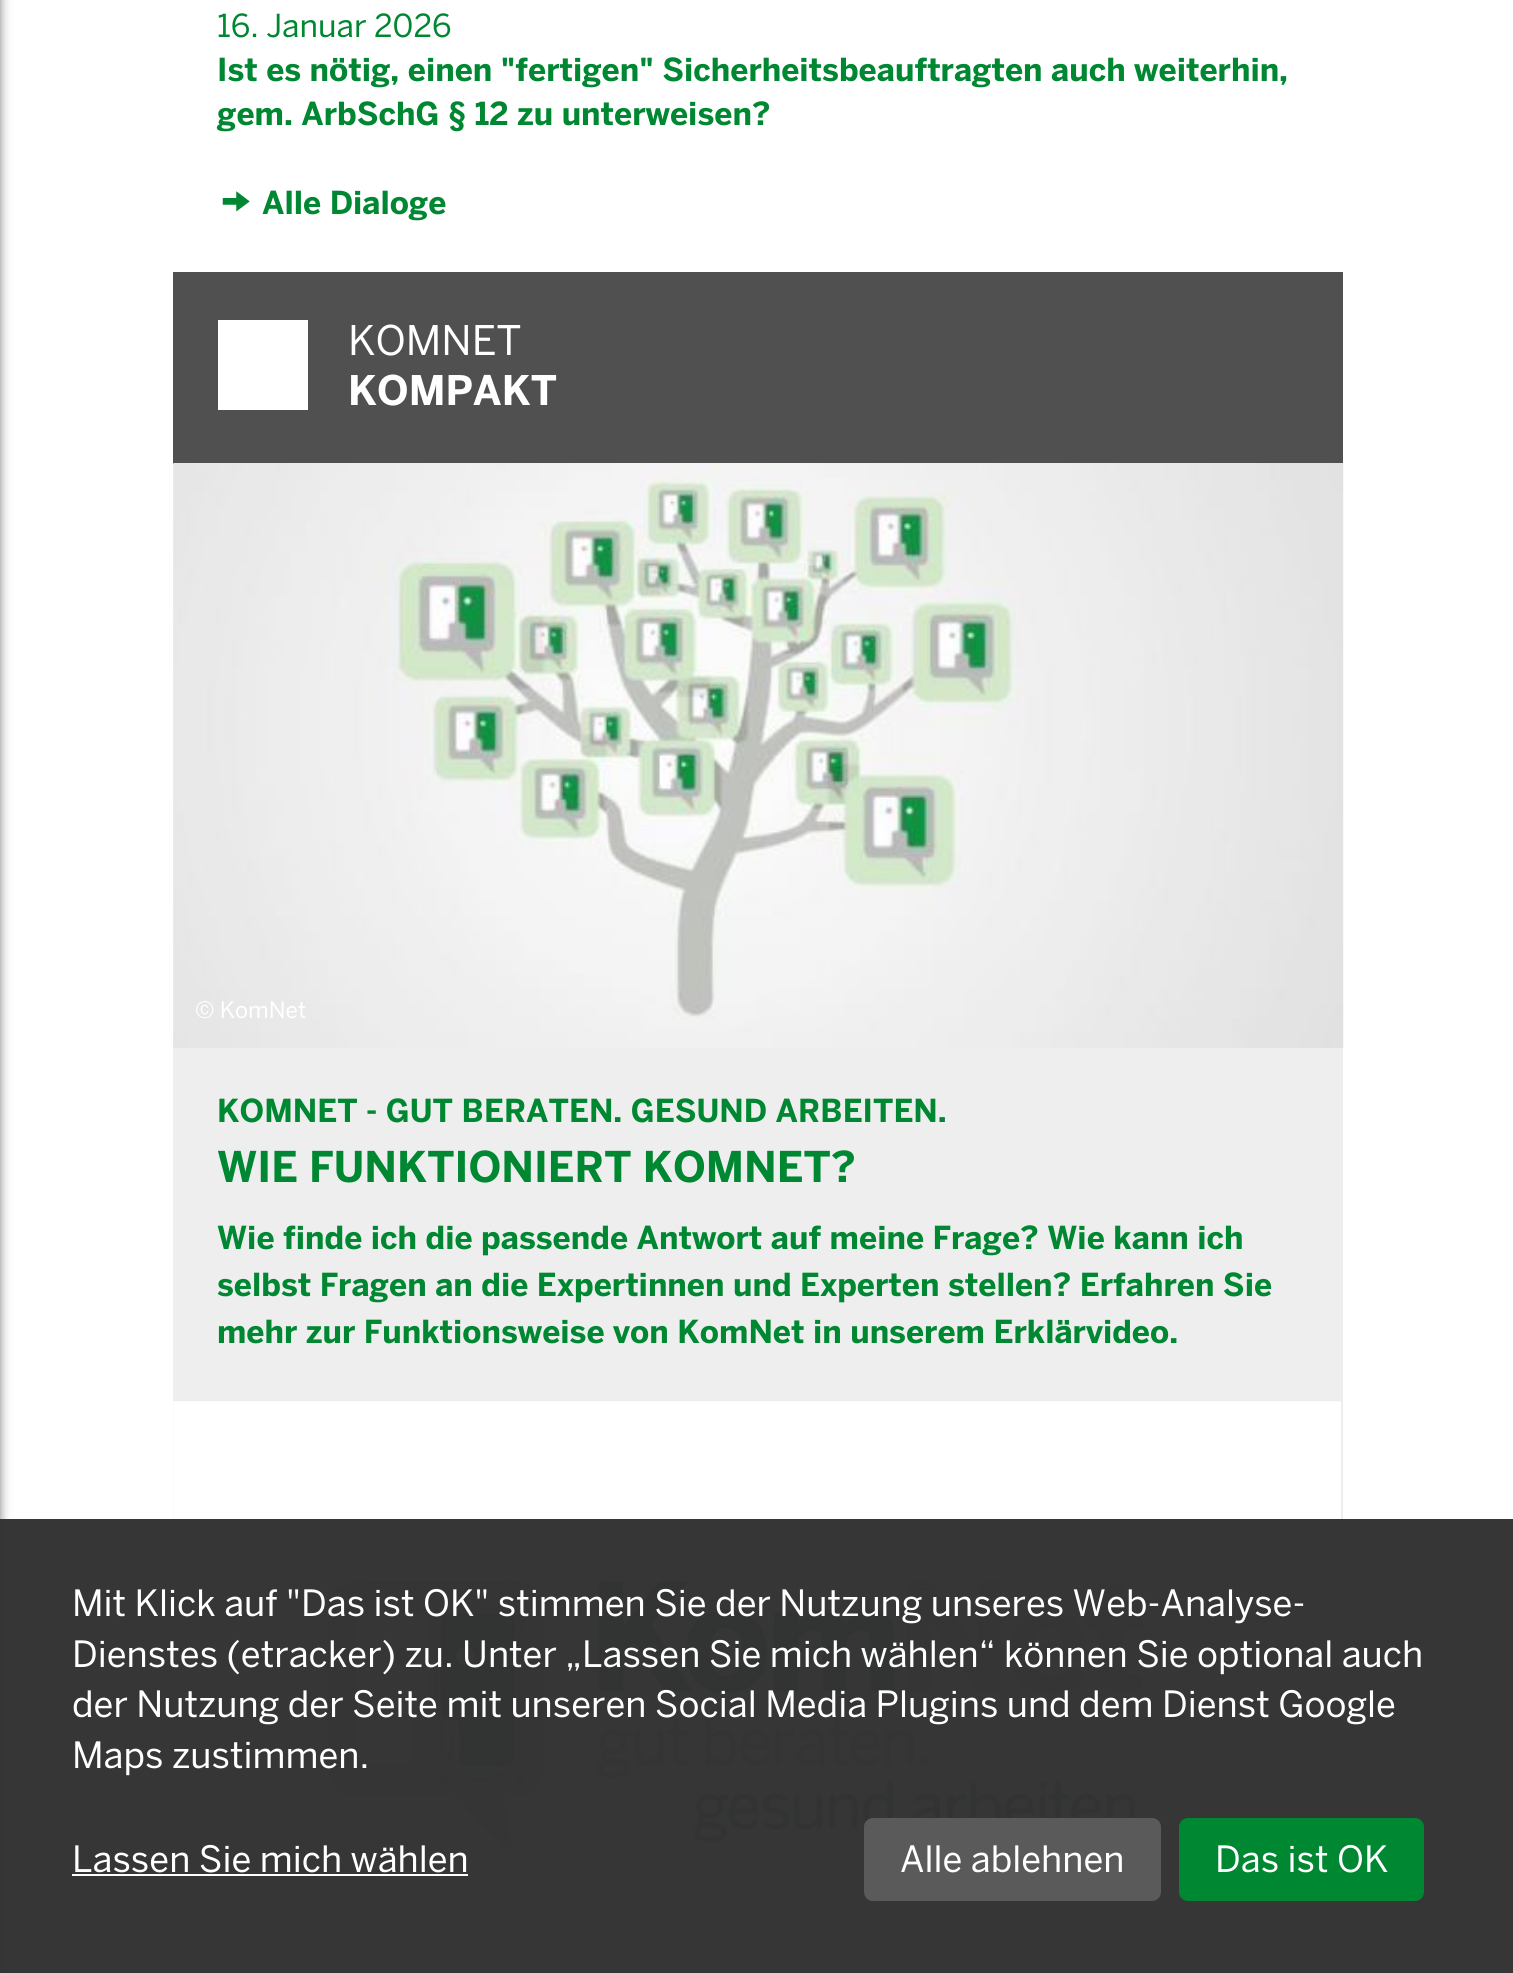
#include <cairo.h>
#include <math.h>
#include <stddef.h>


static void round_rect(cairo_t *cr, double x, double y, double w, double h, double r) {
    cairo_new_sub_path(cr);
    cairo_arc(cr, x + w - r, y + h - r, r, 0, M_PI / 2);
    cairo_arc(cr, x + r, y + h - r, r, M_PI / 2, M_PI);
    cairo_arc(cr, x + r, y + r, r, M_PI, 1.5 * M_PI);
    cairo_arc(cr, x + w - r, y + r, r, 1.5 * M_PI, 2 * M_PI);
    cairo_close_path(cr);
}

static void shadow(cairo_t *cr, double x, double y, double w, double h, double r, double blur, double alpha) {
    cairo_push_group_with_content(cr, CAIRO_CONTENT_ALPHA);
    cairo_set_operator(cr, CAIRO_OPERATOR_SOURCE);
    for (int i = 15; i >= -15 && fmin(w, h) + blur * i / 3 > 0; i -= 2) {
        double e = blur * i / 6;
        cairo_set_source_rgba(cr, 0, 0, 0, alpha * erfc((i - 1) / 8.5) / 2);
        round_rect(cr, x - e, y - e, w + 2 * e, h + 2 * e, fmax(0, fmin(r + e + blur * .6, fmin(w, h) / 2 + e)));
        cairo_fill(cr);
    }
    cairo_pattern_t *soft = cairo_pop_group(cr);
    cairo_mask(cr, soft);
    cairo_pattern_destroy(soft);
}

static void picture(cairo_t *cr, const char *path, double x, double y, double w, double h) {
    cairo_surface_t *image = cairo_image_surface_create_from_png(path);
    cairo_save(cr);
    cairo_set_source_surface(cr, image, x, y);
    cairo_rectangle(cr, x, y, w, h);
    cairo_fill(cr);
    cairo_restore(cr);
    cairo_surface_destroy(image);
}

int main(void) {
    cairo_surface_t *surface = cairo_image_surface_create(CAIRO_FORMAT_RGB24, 1513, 1973);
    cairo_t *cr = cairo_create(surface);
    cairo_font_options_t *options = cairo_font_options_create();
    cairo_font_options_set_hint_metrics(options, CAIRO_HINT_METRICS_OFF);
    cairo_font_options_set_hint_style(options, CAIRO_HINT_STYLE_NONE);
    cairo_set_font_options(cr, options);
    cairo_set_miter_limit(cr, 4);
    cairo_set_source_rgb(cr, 1, 1, 1);
    cairo_paint(cr);
    cairo_set_source_rgb(cr, 0, 0, 0);
    shadow(cr, -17, -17, 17, 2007, 0, 5.5, 0.5);
    cairo_select_font_face(cr, "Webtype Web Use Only", CAIRO_FONT_SLANT_NORMAL, CAIRO_FONT_WEIGHT_NORMAL);
    cairo_set_font_size(cr, 31.5);
    cairo_set_source_rgb(cr, 0, 0.529, 0.196);
    cairo_move_to(cr, 217, 37);
    cairo_show_text(cr, "16. Januar 2026");
    cairo_select_font_face(cr, "Webtype Web Use Only", CAIRO_FONT_SLANT_NORMAL, CAIRO_FONT_WEIGHT_BOLD);
    cairo_move_to(cr, 217, 81);
    cairo_show_text(cr, "Ist es nötig, einen \"fertigen\" Sicherheitsbeauftragten auch weiterhin,");
    cairo_move_to(cr, 217, 125);
    cairo_show_text(cr, "gem. ArbSchG § 12 zu unterweisen?");
    picture(cr, "img1.png", 222, 191, 28, 21);
    cairo_move_to(cr, 262, 214);
    cairo_show_text(cr, "Alle Dialoge");
    cairo_set_source_rgb(cr, 0.314, 0.314, 0.314);
    cairo_rectangle(cr, 173, 272, 1170, 192);
    cairo_fill(cr);
    cairo_set_source_rgb(cr, 1, 1, 1);
    cairo_rectangle(cr, 218, 320, 90, 90);
    cairo_fill(cr);
    cairo_select_font_face(cr, "Webtype Web Use Only", CAIRO_FONT_SLANT_NORMAL, CAIRO_FONT_WEIGHT_NORMAL);
    cairo_set_font_size(cr, 40.5);
    cairo_move_to(cr, 348, 355);
    cairo_show_text(cr, "KOMNET");
    cairo_select_font_face(cr, "Webtype Web Use Only", CAIRO_FONT_SLANT_NORMAL, CAIRO_FONT_WEIGHT_BOLD);
    cairo_move_to(cr, 348, 405);
    cairo_show_text(cr, "KOMPAKT");
    cairo_set_source_rgb(cr, 0.933, 0.933, 0.933);
    cairo_rectangle(cr, 173, 464, 1170, 1509);
    cairo_fill(cr);
    picture(cr, "img2.png", 173, 463, 1171, 585);
    cairo_select_font_face(cr, "Webtype Web Use Only", CAIRO_FONT_SLANT_NORMAL, CAIRO_FONT_WEIGHT_NORMAL);
    cairo_set_font_size(cr, 22.5);
    cairo_set_source_rgb(cr, 1, 1, 1);
    cairo_move_to(cr, 195, 1018);
    cairo_show_text(cr, "© KomNet");
    cairo_select_font_face(cr, "Webtype Web Use Only", CAIRO_FONT_SLANT_NORMAL, CAIRO_FONT_WEIGHT_BOLD);
    cairo_set_font_size(cr, 31.5);
    cairo_set_source_rgb(cr, 0, 0.529, 0.196);
    cairo_move_to(cr, 217, 1122);
    cairo_show_text(cr, "KOMNET - GUT BERATEN. GESUND ARBEITEN.");
    cairo_set_font_size(cr, 42.1);
    cairo_move_to(cr, 217, 1182);
    cairo_show_text(cr, "WIE FUNKTIONIERT KOMNET?");
    cairo_set_font_size(cr, 31.5);
    cairo_move_to(cr, 217, 1249);
    cairo_show_text(cr, "Wie finde ich die passende Antwort auf meine Frage? Wie kann ich");
    cairo_move_to(cr, 217, 1296);
    cairo_show_text(cr, "selbst Fragen an die Expertinnen und Experten stellen? Erfahren Sie");
    cairo_move_to(cr, 217, 1343);
    cairo_show_text(cr, "mehr zur Funktionsweise von KomNet in unserem Erklärvideo.");
    picture(cr, "img3.png", 173, 1401, 1168, 572);
    cairo_set_source_rgba(cr, 0.196, 0.196, 0.196, 0.98);
    cairo_rectangle(cr, 0, 1519, 1513, 454);
    cairo_fill(cr);
    cairo_select_font_face(cr, "Webtype Web Use Only", CAIRO_FONT_SLANT_NORMAL, CAIRO_FONT_WEIGHT_NORMAL);
    cairo_set_font_size(cr, 36);
    cairo_set_source_rgb(cr, 1, 1, 1);
    cairo_move_to(cr, 72, 1616);
    cairo_show_text(cr, "Mit Klick auf \"Das ist OK\" stimmen Sie der Nutzung unseres Web-Analyse-");
    cairo_move_to(cr, 72, 1667);
    cairo_show_text(cr, "Dienstes (etracker) zu. Unter „Lassen Sie mich wählen“ können Sie optional auch");
    cairo_move_to(cr, 72, 1717);
    cairo_show_text(cr, "der Nutzung der Seite mit unseren Social Media Plugins und dem Dienst Google");
    cairo_move_to(cr, 72, 1768);
    cairo_show_text(cr, "Maps zustimmen.");
    cairo_move_to(cr, 72, 1872);
    cairo_show_text(cr, "Lassen Sie mich wählen");
    cairo_rectangle(cr, 72, 1874, 396, 2);
    cairo_fill(cr);
    cairo_set_source_rgb(cr, 0.353, 0.353, 0.353);
    round_rect(cr, 864, 1818, 297, 83, 9);
    cairo_fill(cr);
    cairo_set_source_rgb(cr, 1, 1, 1);
    cairo_move_to(cr, 900, 1872);
    cairo_show_text(cr, "Alle ablehnen");
    cairo_set_source_rgb(cr, 0, 0.529, 0.196);
    round_rect(cr, 1179, 1818, 245, 83, 9);
    cairo_fill(cr);
    cairo_set_source_rgb(cr, 1, 1, 1);
    cairo_move_to(cr, 1215, 1872);
    cairo_show_text(cr, "Das ist OK");
    cairo_surface_write_to_png(surface, "page.png");
    cairo_font_options_destroy(options);
    cairo_destroy(cr);
    cairo_surface_destroy(surface);
    return 0;
}
